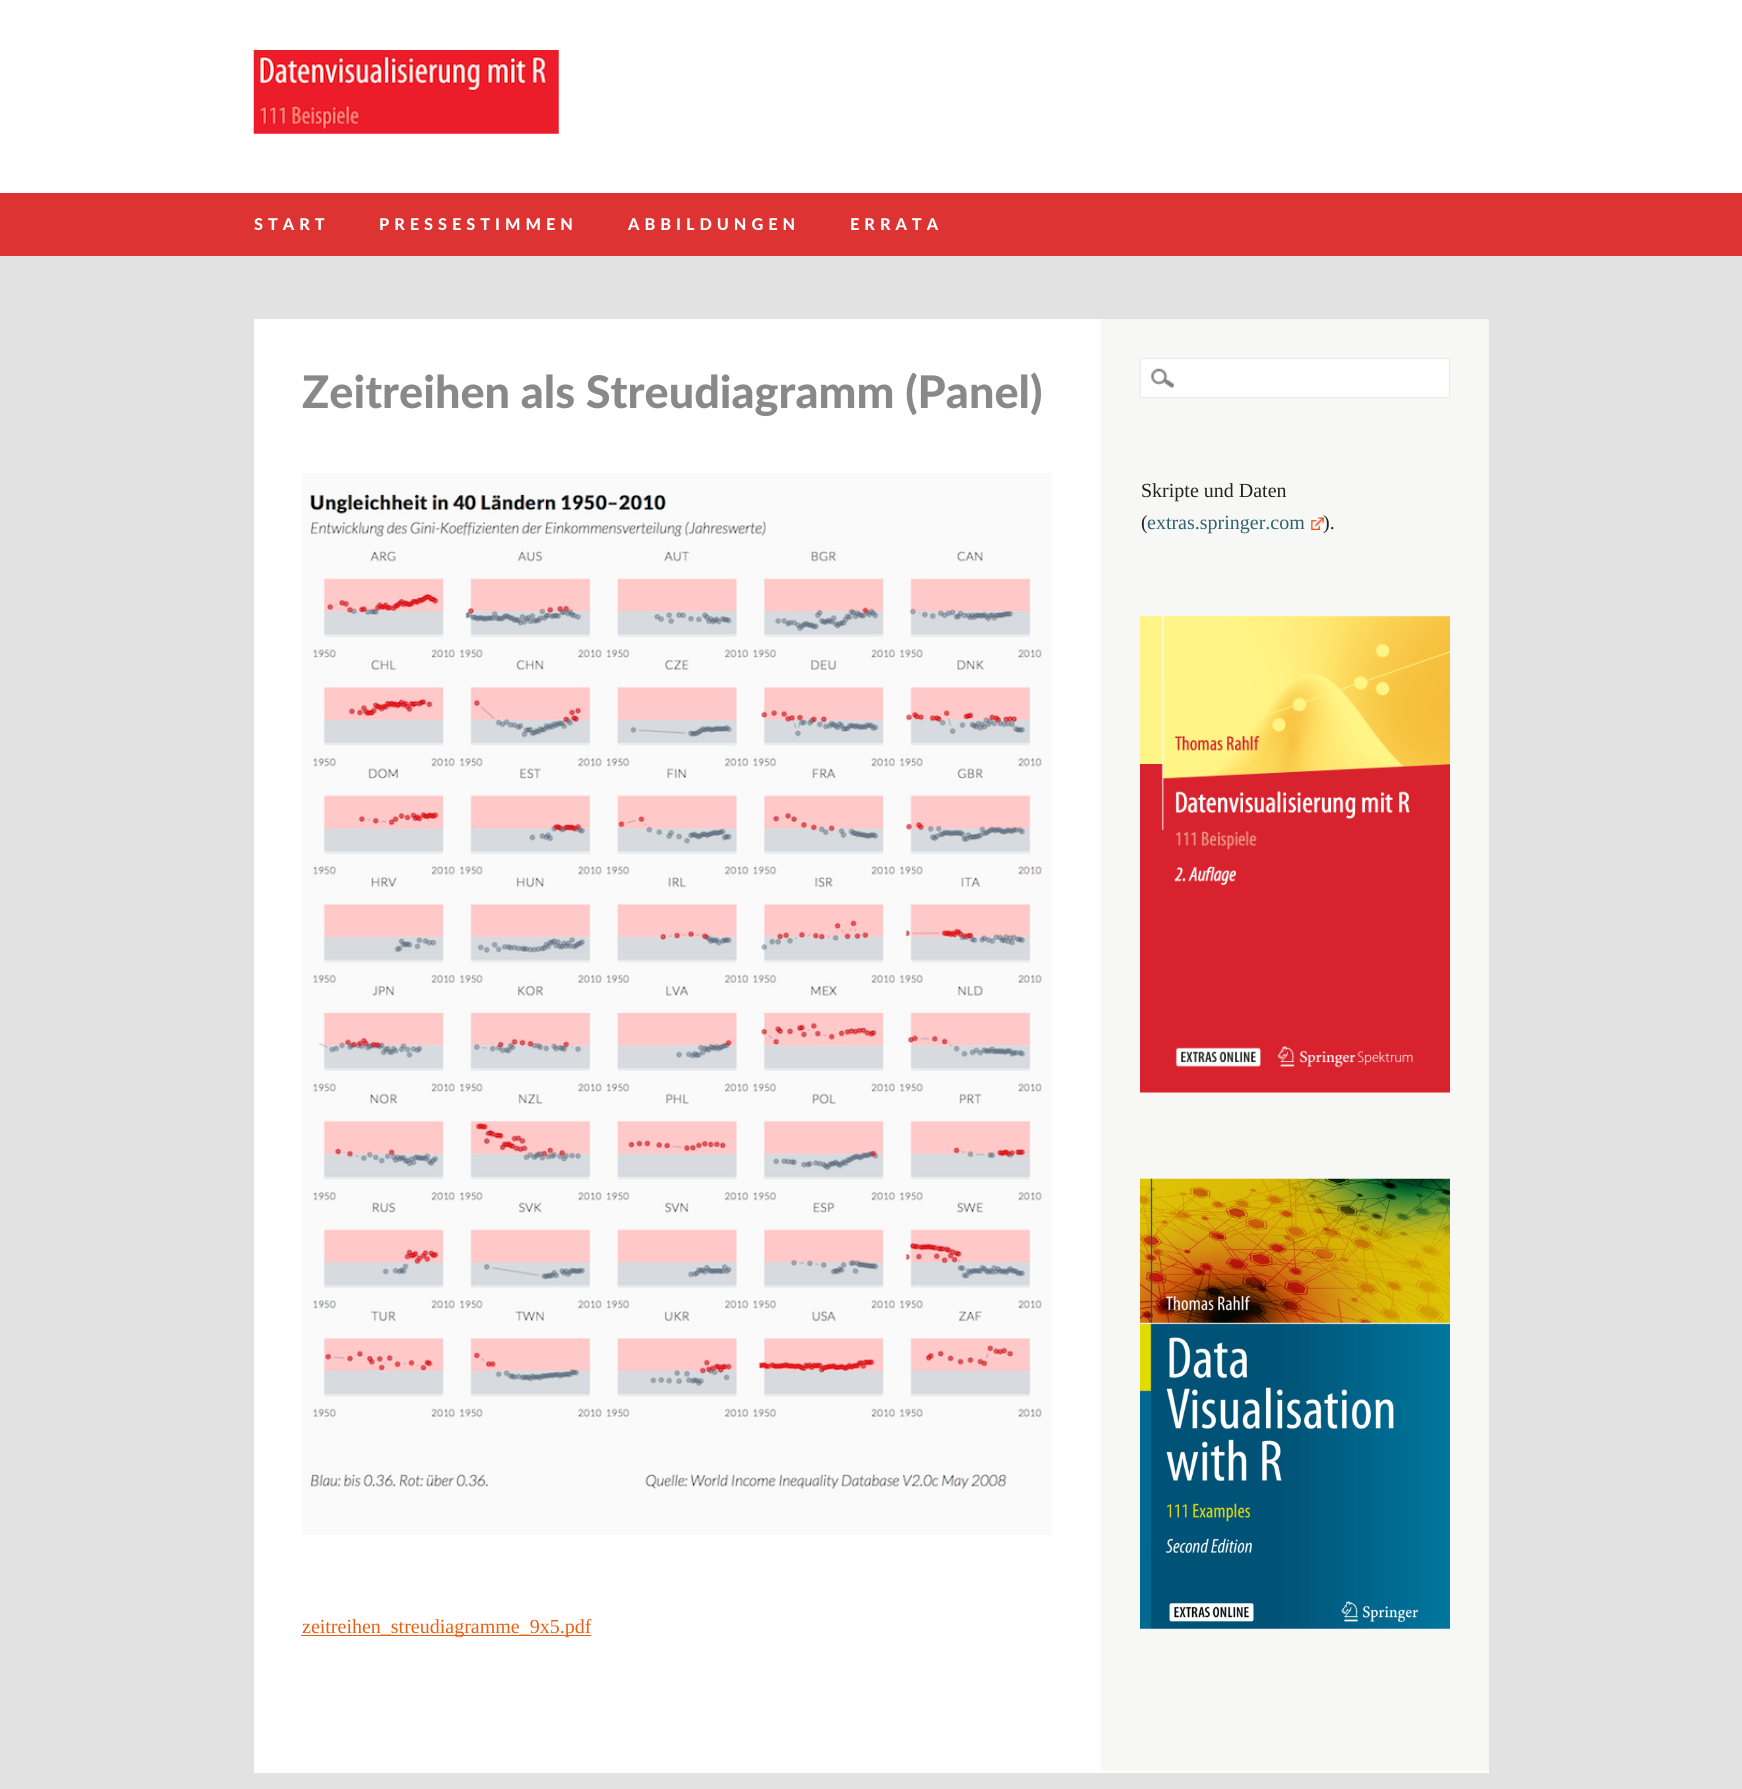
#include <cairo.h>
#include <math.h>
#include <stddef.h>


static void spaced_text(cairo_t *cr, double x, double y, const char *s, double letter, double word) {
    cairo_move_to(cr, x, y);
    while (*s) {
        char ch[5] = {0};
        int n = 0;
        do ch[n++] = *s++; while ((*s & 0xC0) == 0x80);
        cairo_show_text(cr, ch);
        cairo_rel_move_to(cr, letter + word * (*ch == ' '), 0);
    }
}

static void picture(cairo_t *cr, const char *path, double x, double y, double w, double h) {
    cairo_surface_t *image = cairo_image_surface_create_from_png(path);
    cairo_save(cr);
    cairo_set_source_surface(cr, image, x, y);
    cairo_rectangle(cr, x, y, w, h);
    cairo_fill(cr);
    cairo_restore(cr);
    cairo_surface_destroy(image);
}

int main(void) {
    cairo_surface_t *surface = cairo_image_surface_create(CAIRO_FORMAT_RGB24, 1742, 1789);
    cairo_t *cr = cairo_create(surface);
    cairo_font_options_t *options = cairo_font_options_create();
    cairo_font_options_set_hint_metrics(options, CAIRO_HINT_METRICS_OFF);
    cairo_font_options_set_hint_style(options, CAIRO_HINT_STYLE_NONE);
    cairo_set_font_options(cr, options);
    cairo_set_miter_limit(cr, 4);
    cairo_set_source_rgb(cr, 0.886, 0.886, 0.886);
    cairo_paint(cr);
    cairo_set_source_rgb(cr, 1, 1, 1);
    cairo_rectangle(cr, 0, 0, 1742, 193);
    cairo_fill(cr);
    picture(cr, "img1.png", 253, 50, 306, 84);
    cairo_set_source_rgb(cr, 0.867, 0.2, 0.2);
    cairo_rectangle(cr, 0, 193, 1742, 63);
    cairo_fill(cr);
    cairo_select_font_face(cr, "Lato Black", CAIRO_FONT_SLANT_NORMAL, CAIRO_FONT_WEIGHT_NORMAL);
    cairo_set_font_size(cr, 16.25);
    cairo_set_source_rgb(cr, 1, 1, 1);
    spaced_text(cr, 254, 230, "START", 5, 0);
    spaced_text(cr, 379, 230, "PRESSESTIMMEN", 5, 0);
    spaced_text(cr, 628, 230, "ABBILDUNGEN", 5, 0);
    spaced_text(cr, 850, 230, "ERRATA", 5, 0);
    cairo_rectangle(cr, 254, 319, 1235, 1454);
    cairo_fill(cr);
    cairo_set_font_size(cr, 45);
    cairo_set_source_rgb(cr, 0.537, 0.537, 0.537);
    cairo_move_to(cr, 302, 408);
    cairo_show_text(cr, "Zeitreihen als Streudiagramm (Panel)");
    picture(cr, "img2.png", 302, 473, 750, 1062);
    cairo_set_source_rgb(cr, 0.925, 0.373, 0.078);
    cairo_rectangle(cr, 301, 1635, 290, 1);
    cairo_fill(cr);
    cairo_select_font_face(cr, "Liberation Serif", CAIRO_FONT_SLANT_NORMAL, CAIRO_FONT_WEIGHT_NORMAL);
    cairo_set_font_size(cr, 20);
    cairo_move_to(cr, 302, 1633);
    cairo_show_text(cr, "zeitreihen_streudiagramme_9x5.pdf");
    cairo_set_source_rgb(cr, 0.965, 0.969, 0.961);
    cairo_rectangle(cr, 1101, 319, 388, 1452);
    cairo_fill(cr);
    cairo_set_source_rgb(cr, 1, 1, 1);
    cairo_rectangle(cr, 1141, 359, 308, 38);
    cairo_fill(cr);
    picture(cr, "img3.png", 1151, 368, 24, 20);
    cairo_rectangle(cr, 1140.5, 358.5, 309, 39);
    cairo_set_source_rgb(cr, 0.914, 0.914, 0.914);
    cairo_set_line_width(cr, 1);
    cairo_stroke(cr);
    cairo_set_source_rgb(cr, 0.133, 0.133, 0.133);
    cairo_move_to(cr, 1141, 497);
    cairo_show_text(cr, "Skripte und Daten");
    cairo_move_to(cr, 1141, 529);
    cairo_show_text(cr, "(");
    cairo_set_source_rgb(cr, 0.192, 0.384, 0.447);
    cairo_move_to(cr, 1147, 529);
    cairo_show_text(cr, "extras.springer.com");
    picture(cr, "img4.png", 1311, 517, 13, 13);
    cairo_set_source_rgb(cr, 0.133, 0.133, 0.133);
    cairo_move_to(cr, 1323, 529);
    cairo_show_text(cr, ").");
    picture(cr, "img5.png", 1140, 616, 310, 477);
    picture(cr, "img6.png", 1140, 1178, 310, 451);
    cairo_surface_write_to_png(surface, "page.png");
    cairo_font_options_destroy(options);
    cairo_destroy(cr);
    cairo_surface_destroy(surface);
    return 0;
}
